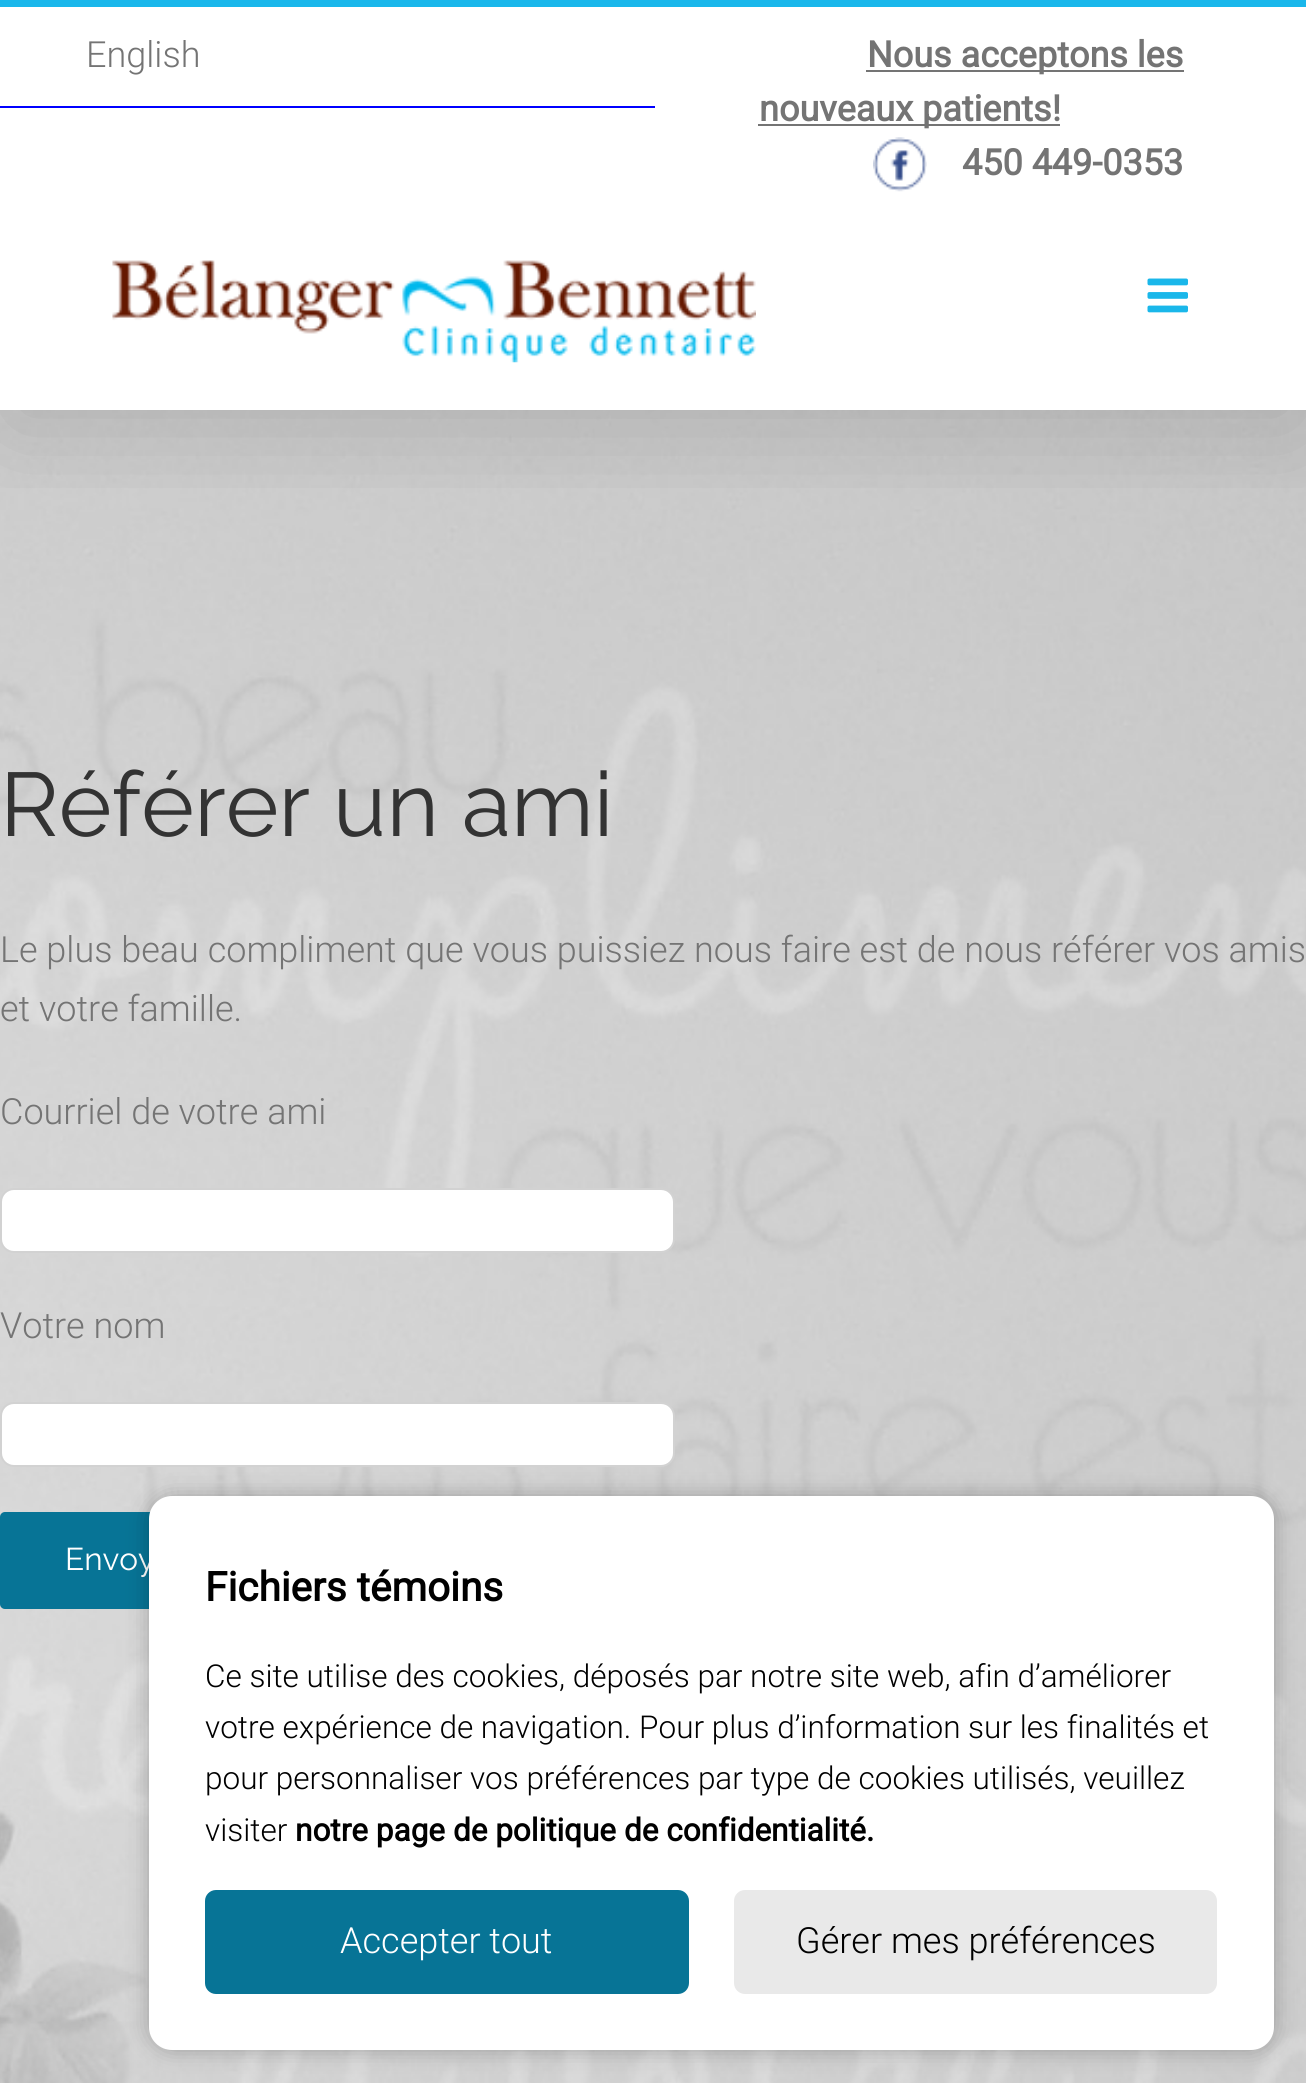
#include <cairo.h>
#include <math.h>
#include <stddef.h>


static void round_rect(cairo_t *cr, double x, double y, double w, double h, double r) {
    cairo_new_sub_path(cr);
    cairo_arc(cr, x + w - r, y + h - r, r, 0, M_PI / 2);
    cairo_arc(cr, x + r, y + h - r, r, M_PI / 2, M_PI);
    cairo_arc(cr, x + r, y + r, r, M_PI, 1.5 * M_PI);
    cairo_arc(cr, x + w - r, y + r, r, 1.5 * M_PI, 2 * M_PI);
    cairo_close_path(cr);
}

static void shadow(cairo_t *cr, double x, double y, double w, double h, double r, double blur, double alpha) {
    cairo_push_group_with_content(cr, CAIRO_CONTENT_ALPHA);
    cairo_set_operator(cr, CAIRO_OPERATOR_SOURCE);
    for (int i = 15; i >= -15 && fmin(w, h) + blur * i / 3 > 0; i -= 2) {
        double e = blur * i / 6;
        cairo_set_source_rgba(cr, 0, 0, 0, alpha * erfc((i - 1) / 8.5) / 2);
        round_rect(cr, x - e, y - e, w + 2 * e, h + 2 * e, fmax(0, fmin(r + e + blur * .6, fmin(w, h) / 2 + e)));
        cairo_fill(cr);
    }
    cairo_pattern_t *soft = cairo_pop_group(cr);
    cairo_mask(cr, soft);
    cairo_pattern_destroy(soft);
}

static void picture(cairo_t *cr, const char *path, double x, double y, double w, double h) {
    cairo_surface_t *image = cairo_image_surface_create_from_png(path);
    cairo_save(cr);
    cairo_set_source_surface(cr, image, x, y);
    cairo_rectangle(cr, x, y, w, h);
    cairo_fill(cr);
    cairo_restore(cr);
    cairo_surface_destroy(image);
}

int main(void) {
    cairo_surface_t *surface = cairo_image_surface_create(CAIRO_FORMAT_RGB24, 1306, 2083);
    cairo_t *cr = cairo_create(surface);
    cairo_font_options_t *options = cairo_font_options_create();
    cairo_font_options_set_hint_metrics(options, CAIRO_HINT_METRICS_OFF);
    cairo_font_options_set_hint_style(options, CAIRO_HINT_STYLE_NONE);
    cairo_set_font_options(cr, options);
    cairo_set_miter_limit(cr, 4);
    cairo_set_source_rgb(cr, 1, 1, 1);
    cairo_paint(cr);
    picture(cr, "img4.png", 0, 410, 1306, 1673);
    cairo_save(cr);
    cairo_rectangle(cr, 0, 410, 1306, 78);
    cairo_clip(cr);
    cairo_set_source_rgb(cr, 0, 0, 0);
    shadow(cr, 5, 27, 1298, 401, 0, 56, 0.14);
    cairo_restore(cr);
    cairo_set_source_rgb(cr, 0.102, 0.718, 0.918);
    cairo_rectangle(cr, 0, 0, 1306, 7);
    cairo_fill(cr);
    cairo_set_source_rgb(cr, 0, 0, 1);
    cairo_rectangle(cr, 0, 106, 655, 2);
    cairo_fill(cr);
    cairo_select_font_face(cr, "Roboto Light", CAIRO_FONT_SLANT_NORMAL, CAIRO_FONT_WEIGHT_NORMAL);
    cairo_set_font_size(cr, 36);
    cairo_set_source_rgb(cr, 0.455, 0.455, 0.455);
    cairo_move_to(cr, 86, 67);
    cairo_show_text(cr, "English");
    cairo_rectangle(cr, 866, 70, 318, 2);
    cairo_fill(cr);
    cairo_select_font_face(cr, "Roboto", CAIRO_FONT_SLANT_NORMAL, CAIRO_FONT_WEIGHT_BOLD);
    cairo_move_to(cr, 867, 67);
    cairo_show_text(cr, "Nous acceptons les");
    cairo_rectangle(cr, 758, 124, 302, 2);
    cairo_fill(cr);
    cairo_move_to(cr, 759, 121);
    cairo_show_text(cr, "nouveaux patients!");
    picture(cr, "img1.png", 873, 137, 54, 55);
    cairo_move_to(cr, 962, 175);
    cairo_show_text(cr, "450 449-0353");
    cairo_set_source_rgb(cr, 1, 1, 1);
    cairo_rectangle(cr, 0, 409, 1306, 1);
    cairo_fill(cr);
    picture(cr, "img2.png", 112, 260, 644, 103);
    picture(cr, "img3.png", 1147, 278, 41, 35);
    cairo_select_font_face(cr, "Raleway", CAIRO_FONT_SLANT_NORMAL, CAIRO_FONT_WEIGHT_NORMAL);
    cairo_set_font_size(cr, 90);
    cairo_set_source_rgb(cr, 0.2, 0.2, 0.2);
    cairo_move_to(cr, 0, 836);
    cairo_show_text(cr, "Référer un ami");
    cairo_select_font_face(cr, "Roboto Light", CAIRO_FONT_SLANT_NORMAL, CAIRO_FONT_WEIGHT_NORMAL);
    cairo_set_font_size(cr, 36);
    cairo_set_source_rgb(cr, 0.455, 0.455, 0.455);
    cairo_move_to(cr, 0, 962);
    cairo_show_text(cr, "Le plus beau compliment que vous puissiez nous faire est de nous référer vos amis");
    cairo_move_to(cr, 0, 1021);
    cairo_show_text(cr, "et votre famille.");
    cairo_move_to(cr, 0, 1124);
    cairo_show_text(cr, "Courriel de votre ami");
    cairo_set_source_rgb(cr, 1, 1, 1);
    round_rect(cr, 1, 1189, 673, 63, 13);
    cairo_fill_preserve(cr);
    cairo_set_source_rgb(cr, 0.824, 0.824, 0.824);
    cairo_stroke(cr);
    cairo_set_source_rgb(cr, 0.455, 0.455, 0.455);
    cairo_move_to(cr, 0, 1338);
    cairo_show_text(cr, "Votre nom");
    cairo_set_source_rgb(cr, 1, 1, 1);
    round_rect(cr, 1, 1403, 673, 63, 13);
    cairo_fill_preserve(cr);
    cairo_set_source_rgb(cr, 0.824, 0.824, 0.824);
    cairo_stroke(cr);
    cairo_set_source_rgb(cr, 0.031, 0.455, 0.588);
    round_rect(cr, 0, 1512, 250, 97, 5);
    cairo_fill(cr);
    cairo_select_font_face(cr, "Raleway", CAIRO_FONT_SLANT_NORMAL, CAIRO_FONT_WEIGHT_NORMAL);
    cairo_set_font_size(cr, 31.5);
    cairo_set_source_rgb(cr, 1, 1, 1);
    cairo_move_to(cr, 65, 1570);
    cairo_show_text(cr, "Envoy");
    cairo_set_source_rgb(cr, 0, 0, 0);
    shadow(cr, 149, 1496, 1125, 554, 23, 11, 0.25);
    cairo_set_source_rgb(cr, 1, 1, 1);
    round_rect(cr, 149, 1496, 1125, 554, 23);
    cairo_fill(cr);
    cairo_select_font_face(cr, "Roboto", CAIRO_FONT_SLANT_NORMAL, CAIRO_FONT_WEIGHT_BOLD);
    cairo_set_font_size(cr, 40.5);
    cairo_set_source_rgb(cr, 0, 0, 0);
    cairo_move_to(cr, 205, 1601);
    cairo_show_text(cr, "Fichiers témoins");
    cairo_select_font_face(cr, "Roboto Light", CAIRO_FONT_SLANT_NORMAL, CAIRO_FONT_WEIGHT_NORMAL);
    cairo_set_font_size(cr, 31.5);
    cairo_move_to(cr, 205, 1687);
    cairo_show_text(cr, "Ce site utilise des cookies, déposés par notre site web, afin d’améliorer");
    cairo_move_to(cr, 205, 1738);
    cairo_show_text(cr, "votre expérience de navigation. Pour plus d’information sur les finalités et");
    cairo_move_to(cr, 205, 1789);
    cairo_show_text(cr, "pour personnaliser vos préférences par type de cookies utilisés, veuillez");
    cairo_move_to(cr, 205, 1841);
    cairo_show_text(cr, "visiter");
    cairo_select_font_face(cr, "Roboto", CAIRO_FONT_SLANT_NORMAL, CAIRO_FONT_WEIGHT_BOLD);
    cairo_move_to(cr, 295, 1841);
    cairo_show_text(cr, "notre page de politique de confidentialité.");
    cairo_set_source_rgb(cr, 0.031, 0.455, 0.588);
    round_rect(cr, 205, 1890, 484, 104, 11);
    cairo_fill(cr);
    cairo_select_font_face(cr, "Roboto Light", CAIRO_FONT_SLANT_NORMAL, CAIRO_FONT_WEIGHT_NORMAL);
    cairo_set_font_size(cr, 36);
    cairo_set_source_rgb(cr, 1, 1, 1);
    cairo_move_to(cr, 340, 1953);
    cairo_show_text(cr, "Accepter tout");
    cairo_set_source_rgb(cr, 0.914, 0.914, 0.914);
    round_rect(cr, 734, 1890, 483, 104, 11);
    cairo_fill(cr);
    cairo_set_source_rgb(cr, 0, 0, 0);
    cairo_move_to(cr, 796, 1953);
    cairo_show_text(cr, "Gérer mes préférences");
    cairo_surface_write_to_png(surface, "page.png");
    cairo_font_options_destroy(options);
    cairo_destroy(cr);
    cairo_surface_destroy(surface);
    return 0;
}
